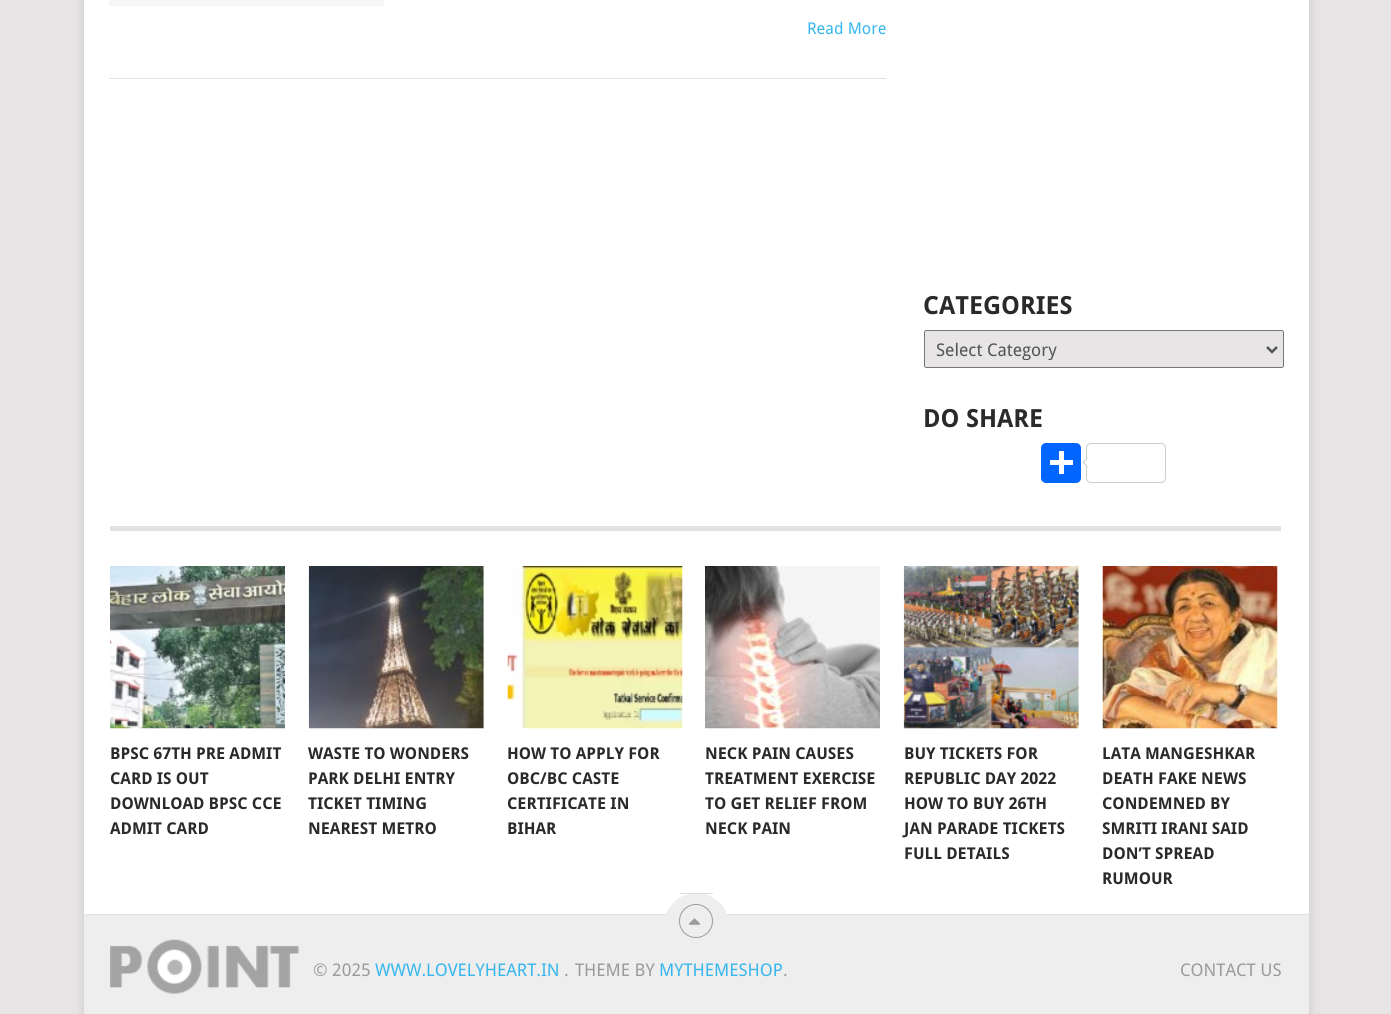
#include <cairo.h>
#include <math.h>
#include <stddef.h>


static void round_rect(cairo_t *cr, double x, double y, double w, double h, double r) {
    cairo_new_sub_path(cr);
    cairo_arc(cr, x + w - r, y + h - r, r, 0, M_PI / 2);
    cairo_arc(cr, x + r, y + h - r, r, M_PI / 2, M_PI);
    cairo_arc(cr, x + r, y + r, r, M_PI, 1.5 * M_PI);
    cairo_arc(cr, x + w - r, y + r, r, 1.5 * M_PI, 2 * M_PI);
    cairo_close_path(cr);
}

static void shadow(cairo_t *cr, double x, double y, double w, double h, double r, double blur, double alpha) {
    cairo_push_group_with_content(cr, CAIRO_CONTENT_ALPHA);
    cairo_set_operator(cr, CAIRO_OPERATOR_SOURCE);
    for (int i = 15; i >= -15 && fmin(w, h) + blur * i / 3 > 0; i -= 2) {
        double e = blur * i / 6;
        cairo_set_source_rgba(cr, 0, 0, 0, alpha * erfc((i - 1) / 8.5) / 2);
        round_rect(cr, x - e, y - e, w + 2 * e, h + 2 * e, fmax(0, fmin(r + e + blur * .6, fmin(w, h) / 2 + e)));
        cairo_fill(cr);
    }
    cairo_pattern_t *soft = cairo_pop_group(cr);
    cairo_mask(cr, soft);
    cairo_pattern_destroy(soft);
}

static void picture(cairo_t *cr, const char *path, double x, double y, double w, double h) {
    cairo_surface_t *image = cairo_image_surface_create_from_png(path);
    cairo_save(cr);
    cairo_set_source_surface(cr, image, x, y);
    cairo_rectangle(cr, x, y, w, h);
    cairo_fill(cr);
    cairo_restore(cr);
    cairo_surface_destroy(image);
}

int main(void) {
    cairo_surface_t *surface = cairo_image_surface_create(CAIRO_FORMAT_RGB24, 1391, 1014);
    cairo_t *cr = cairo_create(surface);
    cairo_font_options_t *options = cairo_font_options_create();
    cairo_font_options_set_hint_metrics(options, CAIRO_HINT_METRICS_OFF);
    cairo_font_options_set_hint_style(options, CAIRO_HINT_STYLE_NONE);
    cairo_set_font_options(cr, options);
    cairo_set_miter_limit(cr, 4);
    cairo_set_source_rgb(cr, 0.906, 0.898, 0.902);
    cairo_paint(cr);
    cairo_set_source_rgb(cr, 0.196, 0.196, 0.196);
    shadow(cr, 84, -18, 1225, 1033, 0, 6, 0.17);
    cairo_set_source_rgb(cr, 1, 1, 1);
    cairo_rectangle(cr, 84, 0, 1225, 914);
    cairo_fill(cr);
    cairo_set_source_rgb(cr, 0.886, 0.886, 0.886);
    cairo_rectangle(cr, 109, 78, 777, 1);
    cairo_fill(cr);
    cairo_set_source_rgb(cr, 0.961, 0.961, 0.961);
    cairo_rectangle(cr, 109, 0, 275, 6);
    cairo_fill(cr);
    cairo_select_font_face(cr, "Droid Sans", CAIRO_FONT_SLANT_NORMAL, CAIRO_FONT_WEIGHT_NORMAL);
    cairo_set_font_size(cr, 16.25);
    cairo_set_source_rgb(cr, 0.22, 0.718, 0.933);
    cairo_move_to(cr, 807, 34);
    cairo_show_text(cr, "Read More");
    cairo_select_font_face(cr, "Droid Sans", CAIRO_FONT_SLANT_NORMAL, CAIRO_FONT_WEIGHT_BOLD);
    cairo_set_font_size(cr, 25);
    cairo_set_source_rgb(cr, 0.165, 0.165, 0.165);
    cairo_move_to(cr, 923, 314);
    cairo_show_text(cr, "CATEGORIES");
    cairo_set_source_rgb(cr, 0.906, 0.898, 0.902);
    round_rect(cr, 924.5, 330.5, 359, 37, 2);
    cairo_fill_preserve(cr);
    cairo_set_source_rgb(cr, 0.463, 0.463, 0.463);
    cairo_set_line_width(cr, 1);
    cairo_stroke(cr);
    cairo_new_path(cr);
    cairo_move_to(cr, 1267, 347);
    cairo_line_to(cr, 1272, 352);
    cairo_line_to(cr, 1277, 347);
    cairo_set_source_rgb(cr, 0.333, 0.333, 0.333);
    cairo_set_line_width(cr, 2.5);
    cairo_stroke(cr);
    cairo_save(cr);
    cairo_rectangle(cr, 936, 338, 320, 22);
    cairo_clip(cr);
    cairo_select_font_face(cr, "Droid Sans", CAIRO_FONT_SLANT_NORMAL, CAIRO_FONT_WEIGHT_NORMAL);
    cairo_set_font_size(cr, 17.5);
    cairo_move_to(cr, 936, 356);
    cairo_show_text(cr, "Select Category");
    cairo_restore(cr);
    cairo_set_source_rgb(cr, 0.165, 0.165, 0.165);
    cairo_move_to(cr, 923, 427);
    cairo_show_text(cr, "DO SHARE");
    cairo_set_source_rgb(cr, 0.004, 0.4, 1);
    round_rect(cr, 1041, 443, 40, 40, 5);
    cairo_fill(cr);
    cairo_set_source_rgb(cr, 1, 1, 1);
    cairo_rectangle(cr, 1059, 451, 5, 23);
    cairo_fill(cr);
    cairo_rectangle(cr, 1050, 460, 23, 5);
    cairo_fill(cr);
    round_rect(cr, 1086.5, 443.5, 79, 39, 4.5);
    cairo_set_source_rgb(cr, 0.8, 0.8, 0.8);
    cairo_set_line_width(cr, 1);
    cairo_stroke(cr);
    cairo_new_path(cr);
    cairo_move_to(cr, 1087.5, 457.5);
    cairo_line_to(cr, 1087.5, 467.5);
    cairo_line_to(cr, 1082.5, 462.5);
    cairo_close_path(cr);
    cairo_fill(cr);
    cairo_set_source_rgb(cr, 1, 1, 1);
    cairo_new_path(cr);
    cairo_move_to(cr, 1089, 457.5);
    cairo_line_to(cr, 1089, 467.5);
    cairo_line_to(cr, 1084, 462.5);
    cairo_close_path(cr);
    cairo_fill(cr);
    cairo_set_source_rgb(cr, 0.886, 0.886, 0.886);
    cairo_rectangle(cr, 110, 526, 1171, 5);
    cairo_fill(cr);
    picture(cr, "img1.png", 110, 566, 175, 163);
    cairo_set_font_size(cr, 16.25);
    cairo_set_source_rgb(cr, 0.165, 0.165, 0.165);
    cairo_move_to(cr, 110, 759);
    cairo_show_text(cr, "BPSC 67TH PRE ADMIT");
    cairo_move_to(cr, 110, 784);
    cairo_show_text(cr, "CARD IS OUT");
    cairo_move_to(cr, 110, 809);
    cairo_show_text(cr, "DOWNLOAD BPSC CCE");
    cairo_move_to(cr, 110, 834);
    cairo_show_text(cr, "ADMIT CARD");
    picture(cr, "img2.png", 308, 566, 176, 163);
    cairo_move_to(cr, 308, 759);
    cairo_show_text(cr, "WASTE TO WONDERS");
    cairo_move_to(cr, 308, 784);
    cairo_show_text(cr, "PARK DELHI ENTRY");
    cairo_move_to(cr, 308, 809);
    cairo_show_text(cr, "TICKET TIMING");
    cairo_move_to(cr, 308, 834);
    cairo_show_text(cr, "NEAREST METRO");
    picture(cr, "img3.png", 507, 566, 176, 163);
    cairo_move_to(cr, 507, 759);
    cairo_show_text(cr, "HOW TO APPLY FOR");
    cairo_move_to(cr, 507, 784);
    cairo_show_text(cr, "OBC/BC CASTE");
    cairo_move_to(cr, 507, 809);
    cairo_show_text(cr, "CERTIFICATE IN");
    cairo_move_to(cr, 507, 834);
    cairo_show_text(cr, "BIHAR");
    picture(cr, "img4.png", 705, 566, 175, 163);
    cairo_move_to(cr, 705, 759);
    cairo_show_text(cr, "NECK PAIN CAUSES");
    cairo_move_to(cr, 705, 784);
    cairo_show_text(cr, "TREATMENT EXERCISE");
    cairo_move_to(cr, 705, 809);
    cairo_show_text(cr, "TO GET RELIEF FROM");
    cairo_move_to(cr, 705, 834);
    cairo_show_text(cr, "NECK PAIN");
    picture(cr, "img5.png", 903, 566, 176, 163);
    cairo_move_to(cr, 904, 759);
    cairo_show_text(cr, "BUY TICKETS FOR");
    cairo_move_to(cr, 904, 784);
    cairo_show_text(cr, "REPUBLIC DAY 2022");
    cairo_move_to(cr, 904, 809);
    cairo_show_text(cr, "HOW TO BUY 26TH");
    cairo_move_to(cr, 904, 834);
    cairo_show_text(cr, "JAN PARADE TICKETS");
    cairo_move_to(cr, 904, 859);
    cairo_show_text(cr, "FULL DETAILS");
    picture(cr, "img6.png", 1102, 566, 176, 163);
    cairo_move_to(cr, 1102, 759);
    cairo_show_text(cr, "LATA MANGESHKAR");
    cairo_move_to(cr, 1102, 784);
    cairo_show_text(cr, "DEATH FAKE NEWS");
    cairo_move_to(cr, 1102, 809);
    cairo_show_text(cr, "CONDEMNED BY");
    cairo_move_to(cr, 1102, 834);
    cairo_show_text(cr, "SMRITI IRANI SAID");
    cairo_move_to(cr, 1102, 859);
    cairo_show_text(cr, "DON’T SPREAD");
    cairo_move_to(cr, 1102, 884);
    cairo_show_text(cr, "RUMOUR");
    cairo_set_source_rgb(cr, 0.933, 0.933, 0.933);
    cairo_rectangle(cr, 84, 915, 1225, 99);
    cairo_fill(cr);
    cairo_set_source_rgb(cr, 0.886, 0.886, 0.886);
    cairo_rectangle(cr, 84, 914, 1225, 1);
    cairo_fill(cr);
    cairo_set_source_rgb(cr, 0.933, 0.933, 0.933);
    cairo_arc(cr, 696.5, 925.5, 32.5, 0, 2 * M_PI);
    cairo_fill(cr);
    cairo_set_source_rgb(cr, 0.867, 0.867, 0.867);
    cairo_rectangle(cr, 680, 893, 33, 1);
    cairo_fill(cr);
    cairo_arc(cr, 696, 921, 16.5, 0, 2 * M_PI);
    cairo_set_source_rgb(cr, 0.608, 0.608, 0.608);
    cairo_stroke(cr);
    picture(cr, "img7.png", 688, 918, 13, 7);
    picture(cr, "img8.png", 110, 939, 189, 55);
    cairo_select_font_face(cr, "Droid Sans", CAIRO_FONT_SLANT_NORMAL, CAIRO_FONT_WEIGHT_NORMAL);
    cairo_set_font_size(cr, 17.5);
    cairo_move_to(cr, 313, 976);
    cairo_show_text(cr, "© 2025");
    cairo_set_source_rgb(cr, 0.22, 0.718, 0.933);
    cairo_move_to(cr, 375, 976);
    cairo_show_text(cr, "WWW.LOVELYHEART.IN");
    cairo_set_source_rgb(cr, 0.608, 0.608, 0.608);
    cairo_move_to(cr, 564, 976);
    cairo_show_text(cr, ".");
    cairo_move_to(cr, 575, 976);
    cairo_show_text(cr, "THEME BY");
    cairo_set_source_rgb(cr, 0.22, 0.718, 0.933);
    cairo_move_to(cr, 659, 976);
    cairo_show_text(cr, "MYTHEMESHOP");
    cairo_set_source_rgb(cr, 0.608, 0.608, 0.608);
    cairo_move_to(cr, 783, 976);
    cairo_show_text(cr, ".");
    cairo_move_to(cr, 1180, 976);
    cairo_show_text(cr, "CONTACT US");
    cairo_surface_write_to_png(surface, "page.png");
    cairo_font_options_destroy(options);
    cairo_destroy(cr);
    cairo_surface_destroy(surface);
    return 0;
}
